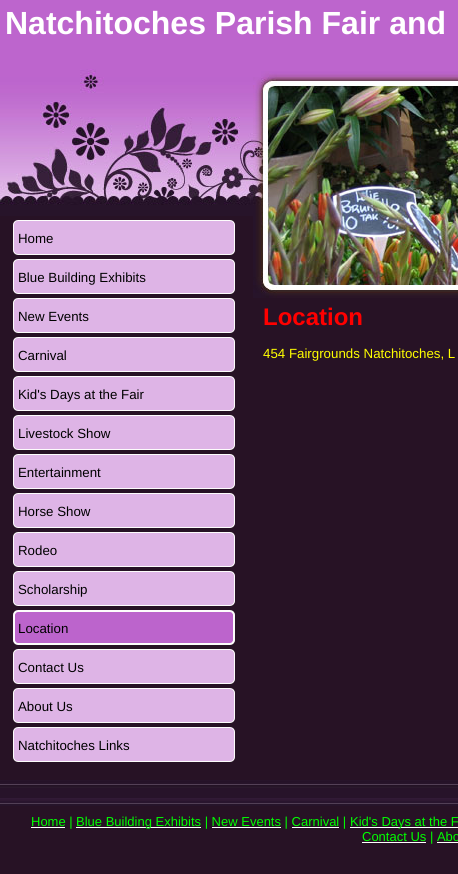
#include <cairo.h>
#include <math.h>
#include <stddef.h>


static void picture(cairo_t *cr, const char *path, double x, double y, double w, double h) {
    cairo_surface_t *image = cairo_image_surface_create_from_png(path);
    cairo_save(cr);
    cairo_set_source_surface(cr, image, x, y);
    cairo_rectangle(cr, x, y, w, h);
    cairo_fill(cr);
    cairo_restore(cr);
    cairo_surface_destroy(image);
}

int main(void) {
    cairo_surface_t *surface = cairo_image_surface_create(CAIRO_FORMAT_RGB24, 458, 874);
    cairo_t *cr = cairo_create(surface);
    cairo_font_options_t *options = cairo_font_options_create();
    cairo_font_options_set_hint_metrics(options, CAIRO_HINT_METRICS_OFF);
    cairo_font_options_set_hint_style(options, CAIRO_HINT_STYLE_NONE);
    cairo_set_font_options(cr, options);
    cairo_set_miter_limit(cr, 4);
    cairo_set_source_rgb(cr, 0.153, 0.071, 0.145);
    cairo_paint(cr);
    cairo_set_source_rgb(cr, 0.741, 0.396, 0.804);
    cairo_rectangle(cr, 0, 0, 458, 69);
    cairo_fill(cr);
    cairo_select_font_face(cr, "Liberation Sans", CAIRO_FONT_SLANT_NORMAL, CAIRO_FONT_WEIGHT_BOLD);
    cairo_set_font_size(cr, 32);
    cairo_set_source_rgb(cr, 1, 1, 1);
    cairo_move_to(cr, 5, 34);
    cairo_show_text(cr, "Natchitoches Parish Fair and");
    picture(cr, "img1.png", 0, 69, 458, 147);
    picture(cr, "img2.png", 0, 133, 253, 71);
    picture(cr, "img3.png", 13, 220, 222, 35);
    cairo_select_font_face(cr, "Liberation Sans", CAIRO_FONT_SLANT_NORMAL, CAIRO_FONT_WEIGHT_NORMAL);
    cairo_set_font_size(cr, 13.3);
    cairo_set_source_rgb(cr, 0, 0, 0);
    cairo_move_to(cr, 18, 243);
    cairo_show_text(cr, "Home");
    picture(cr, "img3.png", 13, 259, 222, 35);
    cairo_move_to(cr, 18, 282);
    cairo_show_text(cr, "Blue Building Exhibits");
    picture(cr, "img3.png", 13, 298, 222, 35);
    cairo_move_to(cr, 18, 321);
    cairo_show_text(cr, "New Events");
    picture(cr, "img3.png", 13, 337, 222, 35);
    cairo_move_to(cr, 18, 360);
    cairo_show_text(cr, "Carnival");
    picture(cr, "img3.png", 13, 376, 222, 35);
    cairo_move_to(cr, 18, 399);
    cairo_show_text(cr, "Kid's Days at the Fair");
    picture(cr, "img3.png", 13, 415, 222, 35);
    cairo_move_to(cr, 18, 438);
    cairo_show_text(cr, "Livestock Show");
    picture(cr, "img3.png", 13, 454, 222, 35);
    cairo_move_to(cr, 18, 477);
    cairo_show_text(cr, "Entertainment");
    picture(cr, "img3.png", 13, 493, 222, 35);
    cairo_move_to(cr, 18, 516);
    cairo_show_text(cr, "Horse Show");
    picture(cr, "img3.png", 13, 532, 222, 35);
    cairo_move_to(cr, 18, 555);
    cairo_show_text(cr, "Rodeo");
    picture(cr, "img3.png", 13, 571, 222, 35);
    cairo_move_to(cr, 18, 594);
    cairo_show_text(cr, "Scholarship");
    picture(cr, "img4.png", 13, 610, 222, 35);
    cairo_move_to(cr, 18, 633);
    cairo_show_text(cr, "Location");
    picture(cr, "img3.png", 13, 649, 222, 35);
    cairo_move_to(cr, 18, 672);
    cairo_show_text(cr, "Contact Us");
    picture(cr, "img3.png", 13, 688, 222, 35);
    cairo_move_to(cr, 18, 711);
    cairo_show_text(cr, "About Us");
    picture(cr, "img3.png", 13, 727, 222, 35);
    cairo_move_to(cr, 18, 750);
    cairo_show_text(cr, "Natchitoches Links");
    picture(cr, "img5.png", 253, 71, 205, 227);
    cairo_select_font_face(cr, "Liberation Sans", CAIRO_FONT_SLANT_NORMAL, CAIRO_FONT_WEIGHT_BOLD);
    cairo_set_font_size(cr, 24);
    cairo_set_source_rgb(cr, 1, 0, 0);
    cairo_move_to(cr, 263, 325);
    cairo_show_text(cr, "Location");
    cairo_select_font_face(cr, "Liberation Sans", CAIRO_FONT_SLANT_NORMAL, CAIRO_FONT_WEIGHT_NORMAL);
    cairo_set_font_size(cr, 13.3);
    cairo_set_source_rgb(cr, 1, 1, 0);
    cairo_move_to(cr, 263, 358);
    cairo_show_text(cr, "454 Fairgrounds Natchitoches, L");
    picture(cr, "img6.png", 0, 780, 458, 8);
    cairo_set_source_rgb(cr, 0.153, 0.078, 0.165);
    cairo_rectangle(cr, 0, 788, 458, 10);
    cairo_fill(cr);
    picture(cr, "img7.png", 0, 798, 458, 8);
    cairo_set_source_rgb(cr, 1, 1, 1);
    cairo_rectangle(cr, 31, 827, 34, 1);
    cairo_fill(cr);
    cairo_set_font_size(cr, 13);
    cairo_set_source_rgb(cr, 0, 1, 0);
    cairo_move_to(cr, 31, 826);
    cairo_show_text(cr, "Home |");
    cairo_set_source_rgb(cr, 1, 1, 1);
    cairo_rectangle(cr, 76, 827, 125, 1);
    cairo_fill(cr);
    cairo_set_source_rgb(cr, 0, 1, 0);
    cairo_move_to(cr, 76, 826);
    cairo_show_text(cr, "Blue Building Exhibits | New Events | Carnival |");
    cairo_set_source_rgb(cr, 1, 1, 1);
    cairo_rectangle(cr, 212, 827, 69, 1);
    cairo_fill(cr);
    cairo_rectangle(cr, 292, 827, 47, 1);
    cairo_fill(cr);
    cairo_rectangle(cr, 350, 827, 108, 1);
    cairo_fill(cr);
    cairo_set_source_rgb(cr, 0, 1, 0);
    cairo_move_to(cr, 350, 826);
    cairo_show_text(cr, "Kid's Days at the F");
    cairo_set_source_rgb(cr, 1, 1, 1);
    cairo_rectangle(cr, 362, 842, 64, 1);
    cairo_fill(cr);
    cairo_set_source_rgb(cr, 0, 1, 0);
    cairo_move_to(cr, 362, 841);
    cairo_show_text(cr, "Contact Us | Abo");
    cairo_set_source_rgb(cr, 1, 1, 1);
    cairo_rectangle(cr, 437, 842, 21, 1);
    cairo_fill(cr);
    cairo_surface_write_to_png(surface, "page.png");
    cairo_font_options_destroy(options);
    cairo_destroy(cr);
    cairo_surface_destroy(surface);
    return 0;
}
